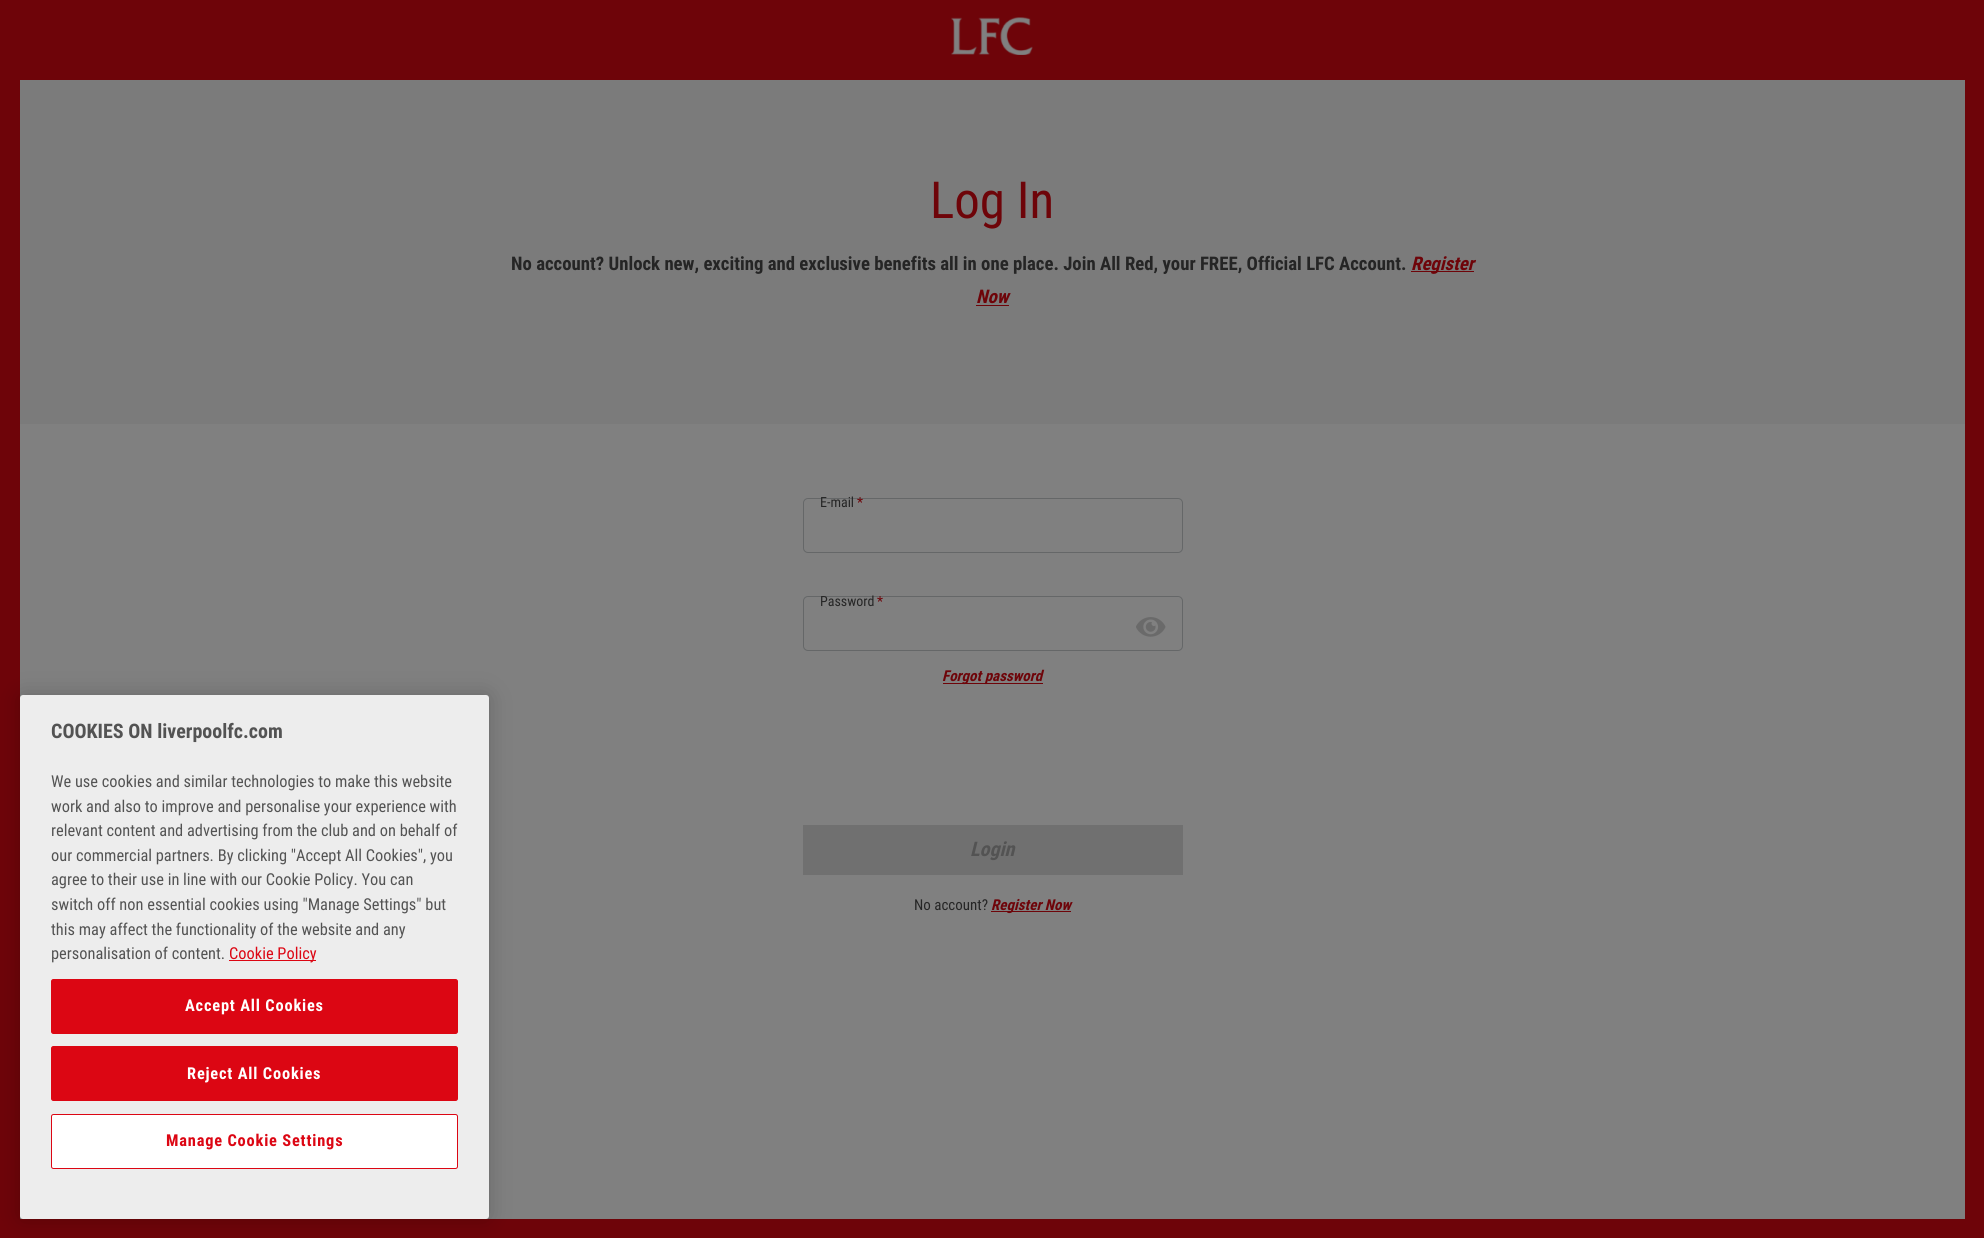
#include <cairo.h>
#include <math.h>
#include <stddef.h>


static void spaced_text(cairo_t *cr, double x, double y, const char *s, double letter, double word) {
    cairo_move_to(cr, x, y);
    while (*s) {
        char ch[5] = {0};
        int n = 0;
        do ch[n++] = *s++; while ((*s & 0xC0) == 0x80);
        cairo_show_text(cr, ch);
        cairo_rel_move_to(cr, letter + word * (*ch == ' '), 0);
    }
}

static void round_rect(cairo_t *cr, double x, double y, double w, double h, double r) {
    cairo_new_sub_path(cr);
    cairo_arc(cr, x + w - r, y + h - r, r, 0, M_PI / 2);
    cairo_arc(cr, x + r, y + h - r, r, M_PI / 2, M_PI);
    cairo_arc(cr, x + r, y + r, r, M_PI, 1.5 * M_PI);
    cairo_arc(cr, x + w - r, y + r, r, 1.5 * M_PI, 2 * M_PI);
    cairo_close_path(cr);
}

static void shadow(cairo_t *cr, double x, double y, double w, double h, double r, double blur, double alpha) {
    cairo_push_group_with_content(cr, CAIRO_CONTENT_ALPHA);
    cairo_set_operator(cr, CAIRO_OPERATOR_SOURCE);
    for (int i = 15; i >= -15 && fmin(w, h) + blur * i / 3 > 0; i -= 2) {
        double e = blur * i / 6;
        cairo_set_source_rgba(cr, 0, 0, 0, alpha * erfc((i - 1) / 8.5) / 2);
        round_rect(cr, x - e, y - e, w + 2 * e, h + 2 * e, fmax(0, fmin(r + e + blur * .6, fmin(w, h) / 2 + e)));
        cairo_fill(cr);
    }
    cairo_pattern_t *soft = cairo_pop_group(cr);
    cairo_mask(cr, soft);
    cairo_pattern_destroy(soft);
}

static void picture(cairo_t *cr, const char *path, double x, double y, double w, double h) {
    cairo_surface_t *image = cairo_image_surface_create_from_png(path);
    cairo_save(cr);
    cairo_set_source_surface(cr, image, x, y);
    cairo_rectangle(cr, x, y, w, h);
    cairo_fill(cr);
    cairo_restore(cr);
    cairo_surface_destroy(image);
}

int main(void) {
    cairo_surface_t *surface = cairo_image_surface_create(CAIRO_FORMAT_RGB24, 1984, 1238);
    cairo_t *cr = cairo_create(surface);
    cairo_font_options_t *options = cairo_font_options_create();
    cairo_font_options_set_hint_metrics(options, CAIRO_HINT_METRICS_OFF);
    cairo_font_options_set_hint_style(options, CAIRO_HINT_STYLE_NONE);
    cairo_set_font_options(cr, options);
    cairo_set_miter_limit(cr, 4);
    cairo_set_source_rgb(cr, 0.431, 0.016, 0.039);
    cairo_paint(cr);
    cairo_set_source_rgb(cr, 0.502, 0.502, 0.502);
    cairo_rectangle(cr, 20, 424, 1945, 795);
    cairo_fill(cr);
    cairo_set_source_rgb(cr, 0, 0, 0);
    shadow(cr, 20, 695, 469, 524, 3, 11, 0.2);
    cairo_set_source_rgb(cr, 0.929, 0.929, 0.929);
    round_rect(cr, 20, 695, 469, 524, 3);
    cairo_fill(cr);
    cairo_select_font_face(cr, "Roboto Condensed", CAIRO_FONT_SLANT_NORMAL, CAIRO_FONT_WEIGHT_BOLD);
    cairo_set_font_size(cr, 20);
    cairo_set_source_rgb(cr, 0.325, 0.325, 0.325);
    cairo_move_to(cr, 51, 738);
    cairo_show_text(cr, "COOKIES ON liverpoolfc.com");
    cairo_select_font_face(cr, "Roboto Condensed", CAIRO_FONT_SLANT_NORMAL, CAIRO_FONT_WEIGHT_NORMAL);
    cairo_set_font_size(cr, 16.4);
    cairo_move_to(cr, 51, 787);
    cairo_show_text(cr, "We use cookies and similar technologies to make this website");
    cairo_move_to(cr, 51, 812);
    cairo_show_text(cr, "work and also to improve and personalise your experience with");
    cairo_move_to(cr, 51, 836);
    cairo_show_text(cr, "relevant content and advertising from the club and on behalf of");
    cairo_move_to(cr, 51, 861);
    cairo_show_text(cr, "our commercial partners. By clicking \"Accept All Cookies\", you");
    cairo_move_to(cr, 51, 885);
    cairo_show_text(cr, "agree to their use in line with our Cookie Policy. You can");
    cairo_move_to(cr, 51, 910);
    cairo_show_text(cr, "switch off non essential cookies using \"Manage Settings\" but");
    cairo_move_to(cr, 51, 935);
    cairo_show_text(cr, "this may affect the functionality of the website and any");
    cairo_move_to(cr, 51, 959);
    cairo_show_text(cr, "personalisation of content.");
    cairo_set_source_rgb(cr, 0.863, 0.027, 0.078);
    cairo_rectangle(cr, 229, 960, 87, 1);
    cairo_fill(cr);
    cairo_move_to(cr, 229, 959);
    cairo_show_text(cr, "Cookie Policy");
    round_rect(cr, 51.5, 979.5, 406, 54, 2);
    cairo_fill_preserve(cr);
    cairo_set_line_width(cr, 1);
    cairo_stroke(cr);
    cairo_select_font_face(cr, "Roboto Condensed", CAIRO_FONT_SLANT_NORMAL, CAIRO_FONT_WEIGHT_BOLD);
    cairo_set_source_rgb(cr, 1, 1, 1);
    spaced_text(cr, 185, 1011, "Accept All Cookies", 0.8, 0);
    cairo_set_source_rgb(cr, 0.863, 0.027, 0.078);
    round_rect(cr, 51.5, 1046.5, 406, 54, 2);
    cairo_fill_preserve(cr);
    cairo_stroke(cr);
    cairo_set_source_rgb(cr, 1, 1, 1);
    spaced_text(cr, 187, 1079, "Reject All Cookies", 0.8, 0);
    round_rect(cr, 51.5, 1114.5, 406, 54, 2);
    cairo_fill_preserve(cr);
    cairo_set_source_rgb(cr, 0.863, 0.027, 0.078);
    cairo_stroke(cr);
    spaced_text(cr, 166, 1146, "Manage Cookie Settings", 0.8, 0);
    picture(cr, "img1.png", 951, 17, 82, 38);
    cairo_set_source_rgb(cr, 0.482, 0.482, 0.482);
    cairo_rectangle(cr, 20, 80, 1945, 344);
    cairo_fill(cr);
    cairo_select_font_face(cr, "Roboto Condensed", CAIRO_FONT_SLANT_NORMAL, CAIRO_FONT_WEIGHT_NORMAL);
    cairo_set_font_size(cr, 51);
    cairo_set_source_rgb(cr, 0.431, 0.016, 0.039);
    cairo_move_to(cr, 930, 218);
    cairo_show_text(cr, "Log In");
    cairo_select_font_face(cr, "Roboto Condensed", CAIRO_FONT_SLANT_NORMAL, CAIRO_FONT_WEIGHT_BOLD);
    cairo_set_font_size(cr, 18.75);
    cairo_set_source_rgb(cr, 0.145, 0.145, 0.145);
    cairo_move_to(cr, 511, 270);
    cairo_show_text(cr, "No account? Unlock new, exciting and exclusive benefits all in one place. Join All Red, your FREE, Official LFC Account.");
    cairo_set_source_rgb(cr, 0.431, 0.016, 0.039);
    cairo_rectangle(cr, 1411, 271, 63, 1);
    cairo_fill(cr);
    cairo_select_font_face(cr, "Roboto Condensed", CAIRO_FONT_SLANT_ITALIC, CAIRO_FONT_WEIGHT_BOLD);
    cairo_move_to(cr, 1411, 270);
    cairo_show_text(cr, "Register");
    cairo_move_to(cr, 976, 303);
    cairo_show_text(cr, "Now");
    cairo_rectangle(cr, 976, 305, 33, 1);
    cairo_fill(cr);
    round_rect(cr, 803.5, 498.5, 379, 54, 4.5);
    cairo_set_source_rgb(cr, 0.396, 0.404, 0.408);
    cairo_stroke(cr);
    cairo_select_font_face(cr, "Roboto Condensed", CAIRO_FONT_SLANT_NORMAL, CAIRO_FONT_WEIGHT_NORMAL);
    cairo_set_font_size(cr, 14);
    cairo_set_source_rgb(cr, 0.145, 0.145, 0.145);
    cairo_move_to(cr, 820, 507);
    cairo_show_text(cr, "E-mail");
    cairo_set_source_rgb(cr, 0.431, 0.016, 0.039);
    cairo_move_to(cr, 857, 507);
    cairo_show_text(cr, "*");
    picture(cr, "img2.png", 1136, 617, 30, 20);
    round_rect(cr, 803.5, 596.5, 379, 54, 4.5);
    cairo_set_source_rgb(cr, 0.396, 0.404, 0.408);
    cairo_stroke(cr);
    cairo_set_source_rgb(cr, 0.145, 0.145, 0.145);
    cairo_move_to(cr, 820, 606);
    cairo_show_text(cr, "Password");
    cairo_set_source_rgb(cr, 0.431, 0.016, 0.039);
    cairo_move_to(cr, 877, 606);
    cairo_show_text(cr, "*");
    cairo_rectangle(cr, 943, 683, 100, 1);
    cairo_fill(cr);
    cairo_select_font_face(cr, "Roboto Condensed", CAIRO_FONT_SLANT_ITALIC, CAIRO_FONT_WEIGHT_BOLD);
    cairo_set_font_size(cr, 15);
    cairo_move_to(cr, 942, 681);
    cairo_show_text(cr, "Forgot password");
    cairo_set_source_rgb(cr, 0.439, 0.439, 0.439);
    cairo_rectangle(cr, 803, 825, 380, 50);
    cairo_fill(cr);
    cairo_set_font_size(cr, 20);
    cairo_set_source_rgb(cr, 0.325, 0.325, 0.325);
    cairo_move_to(cr, 970, 856);
    cairo_show_text(cr, "Login");
    cairo_select_font_face(cr, "Roboto Condensed", CAIRO_FONT_SLANT_NORMAL, CAIRO_FONT_WEIGHT_NORMAL);
    cairo_set_font_size(cr, 15);
    cairo_set_source_rgb(cr, 0.145, 0.145, 0.145);
    cairo_move_to(cr, 914, 910);
    cairo_show_text(cr, "No account?");
    cairo_set_source_rgb(cr, 0.431, 0.016, 0.039);
    cairo_rectangle(cr, 991, 911, 80, 1);
    cairo_fill(cr);
    cairo_select_font_face(cr, "Roboto Condensed", CAIRO_FONT_SLANT_ITALIC, CAIRO_FONT_WEIGHT_BOLD);
    cairo_move_to(cr, 991, 910);
    cairo_show_text(cr, "Register Now");
    cairo_surface_write_to_png(surface, "page.png");
    cairo_font_options_destroy(options);
    cairo_destroy(cr);
    cairo_surface_destroy(surface);
    return 0;
}
